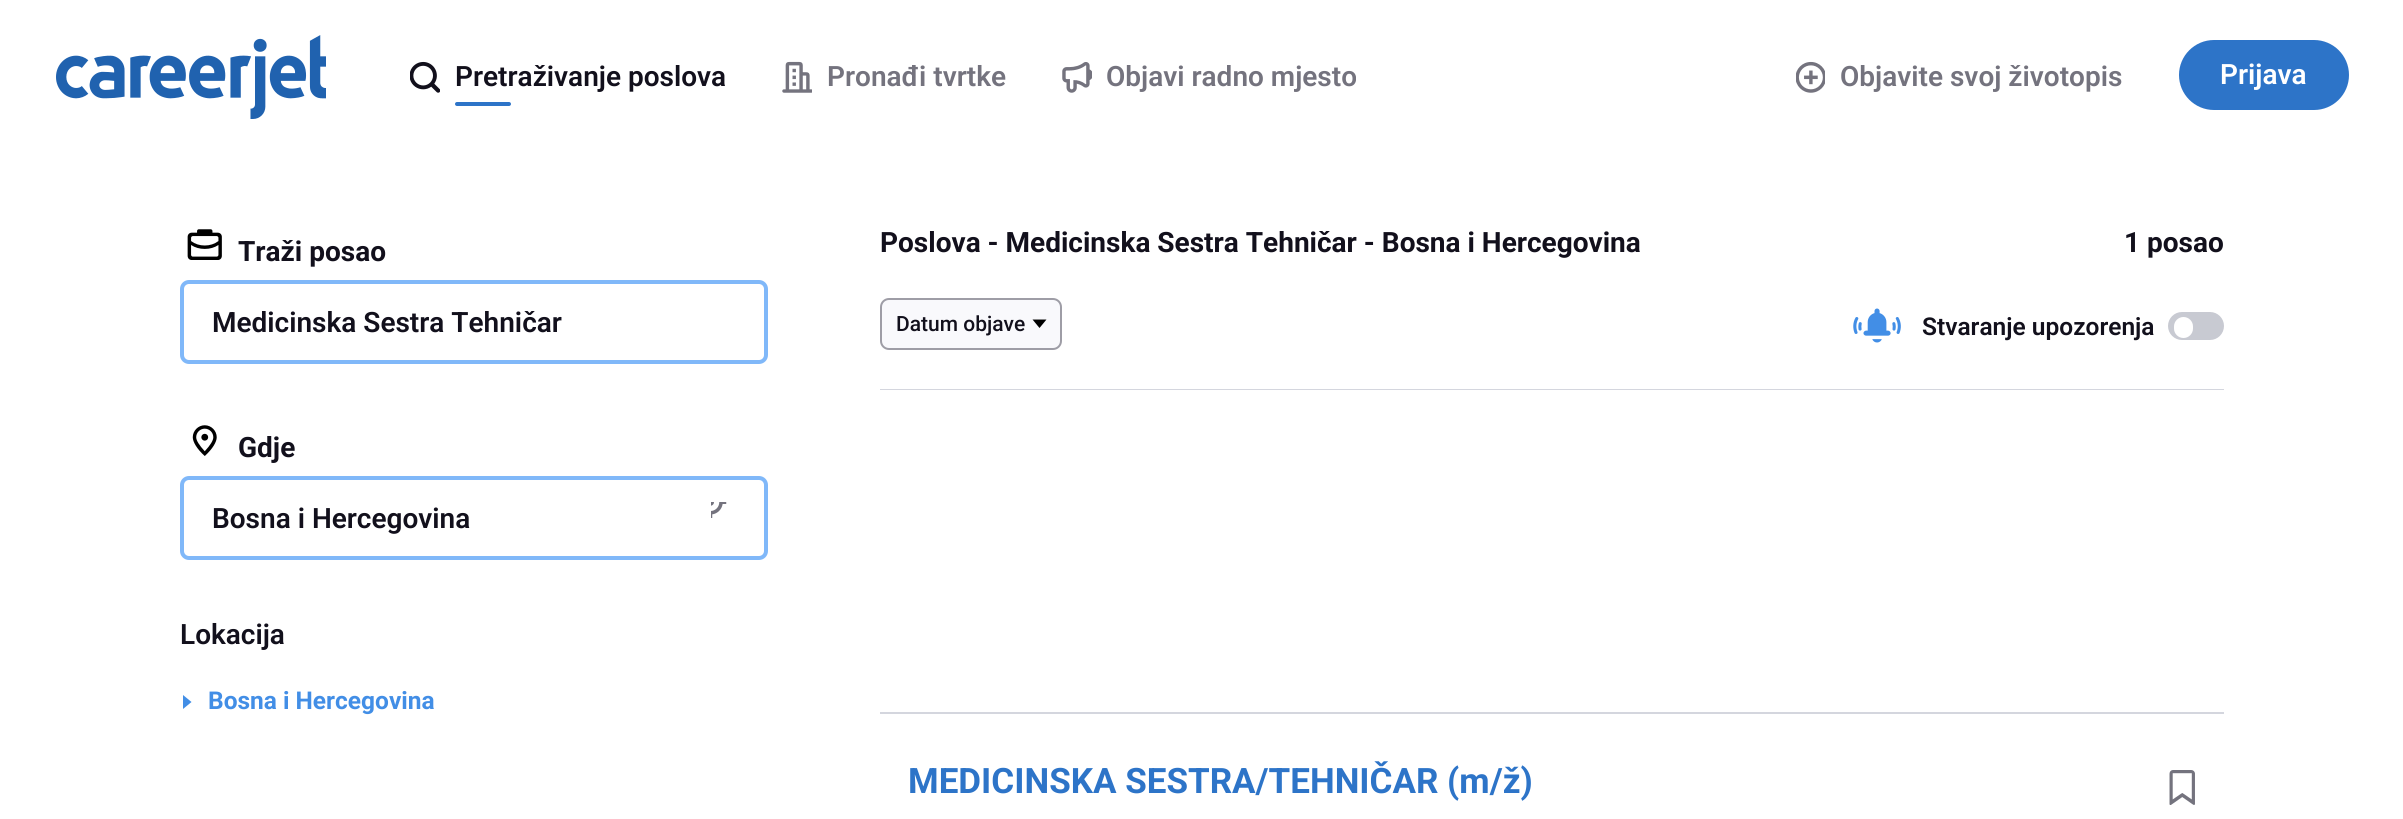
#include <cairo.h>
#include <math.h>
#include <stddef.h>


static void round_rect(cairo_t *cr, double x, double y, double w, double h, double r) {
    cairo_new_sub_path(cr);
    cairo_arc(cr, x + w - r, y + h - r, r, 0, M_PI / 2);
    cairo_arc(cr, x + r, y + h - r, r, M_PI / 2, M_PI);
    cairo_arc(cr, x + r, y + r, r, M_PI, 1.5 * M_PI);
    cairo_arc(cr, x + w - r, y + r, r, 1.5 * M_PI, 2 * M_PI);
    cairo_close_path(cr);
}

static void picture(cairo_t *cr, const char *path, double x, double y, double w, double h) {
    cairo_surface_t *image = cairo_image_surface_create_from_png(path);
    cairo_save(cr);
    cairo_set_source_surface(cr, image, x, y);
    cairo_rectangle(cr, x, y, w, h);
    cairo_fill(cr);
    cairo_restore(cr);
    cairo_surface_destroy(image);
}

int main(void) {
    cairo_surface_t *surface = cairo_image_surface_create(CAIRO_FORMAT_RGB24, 2403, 819);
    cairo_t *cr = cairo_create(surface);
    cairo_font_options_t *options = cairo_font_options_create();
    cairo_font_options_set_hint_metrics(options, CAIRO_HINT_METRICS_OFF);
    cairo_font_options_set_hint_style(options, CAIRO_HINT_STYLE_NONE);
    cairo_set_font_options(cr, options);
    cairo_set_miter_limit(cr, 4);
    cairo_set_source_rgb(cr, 1, 1, 1);
    cairo_paint(cr);
    picture(cr, "img1.png", 56, 35, 270, 84);
    picture(cr, "img2.png", 410, 61, 30, 32);
    cairo_select_font_face(cr, "Roboto SemiBold", CAIRO_FONT_SLANT_NORMAL, CAIRO_FONT_WEIGHT_NORMAL);
    cairo_set_font_size(cr, 28);
    cairo_set_source_rgb(cr, 0.071, 0.063, 0.11);
    cairo_move_to(cr, 455, 86);
    cairo_show_text(cr, "Pretraživanje poslova");
    cairo_set_source_rgb(cr, 0.176, 0.455, 0.784);
    round_rect(cr, 455, 102, 56, 4, 2);
    cairo_fill(cr);
    picture(cr, "img3.png", 782, 61, 30, 32);
    cairo_set_source_rgb(cr, 0.455, 0.451, 0.494);
    cairo_move_to(cr, 827, 86);
    cairo_show_text(cr, "Pronađi tvrtke");
    picture(cr, "img4.png", 1062, 62, 30, 31);
    cairo_move_to(cr, 1106, 86);
    cairo_show_text(cr, "Objavi radno mjesto");
    picture(cr, "img5.png", 1796, 61, 29, 32);
    cairo_move_to(cr, 1840, 86);
    cairo_show_text(cr, "Objavite svoj životopis");
    cairo_set_source_rgb(cr, 0.176, 0.455, 0.784);
    round_rect(cr, 2179, 40, 170, 70, 35);
    cairo_fill(cr);
    cairo_set_source_rgb(cr, 1, 1, 1);
    cairo_move_to(cr, 2220, 84);
    cairo_show_text(cr, "Prijava");
    picture(cr, "img6.png", 187, 229, 35, 31);
    cairo_select_font_face(cr, "Roboto", CAIRO_FONT_SLANT_NORMAL, CAIRO_FONT_WEIGHT_BOLD);
    cairo_set_source_rgb(cr, 0.071, 0.063, 0.11);
    cairo_move_to(cr, 238, 261);
    cairo_show_text(cr, "Traži posao");
    round_rect(cr, 182, 282, 584, 80, 7);
    cairo_set_source_rgb(cr, 0.502, 0.722, 0.973);
    cairo_set_line_width(cr, 4);
    cairo_stroke(cr);
    cairo_select_font_face(cr, "Roboto SemiBold", CAIRO_FONT_SLANT_NORMAL, CAIRO_FONT_WEIGHT_NORMAL);
    cairo_set_source_rgb(cr, 0.071, 0.063, 0.11);
    cairo_move_to(cr, 212, 332);
    cairo_show_text(cr, "Medicinska Sestra Tehničar");
    picture(cr, "img7.png", 192, 425, 25, 31);
    cairo_select_font_face(cr, "Roboto", CAIRO_FONT_SLANT_NORMAL, CAIRO_FONT_WEIGHT_BOLD);
    cairo_move_to(cr, 238, 457);
    cairo_show_text(cr, "Gdje");
    round_rect(cr, 182, 478, 584, 80, 7);
    cairo_set_source_rgb(cr, 0.502, 0.722, 0.973);
    cairo_stroke(cr);
    cairo_select_font_face(cr, "Roboto SemiBold", CAIRO_FONT_SLANT_NORMAL, CAIRO_FONT_WEIGHT_NORMAL);
    cairo_set_source_rgb(cr, 0.071, 0.063, 0.11);
    cairo_move_to(cr, 212, 528);
    cairo_show_text(cr, "Bosna i Hercegovina");
    picture(cr, "img8.png", 711, 502, 16, 16);
    cairo_move_to(cr, 180, 644);
    cairo_show_text(cr, "Lokacija");
    cairo_set_source_rgb(cr, 0.259, 0.557, 0.902);
    cairo_new_path(cr);
    cairo_move_to(cr, 183, 695);
    cairo_line_to(cr, 191.5, 702);
    cairo_line_to(cr, 183, 709);
    cairo_line_to(cr, 183, 695);
    cairo_fill(cr);
    cairo_select_font_face(cr, "Roboto", CAIRO_FONT_SLANT_NORMAL, CAIRO_FONT_WEIGHT_BOLD);
    cairo_set_font_size(cr, 24.5);
    cairo_move_to(cr, 208, 709);
    cairo_show_text(cr, "Bosna i Hercegovina");
    cairo_set_font_size(cr, 28);
    cairo_set_source_rgb(cr, 0.071, 0.063, 0.11);
    cairo_move_to(cr, 880, 252);
    cairo_show_text(cr, "Poslova - Medicinska Sestra Tehničar - Bosna i Hercegovina");
    cairo_move_to(cr, 2124, 252);
    cairo_show_text(cr, "1 posao");
    cairo_set_source_rgb(cr, 0.973, 0.976, 0.988);
    round_rect(cr, 881, 299, 180, 50, 8);
    cairo_fill_preserve(cr);
    cairo_set_source_rgb(cr, 0.62, 0.616, 0.651);
    cairo_set_line_width(cr, 2);
    cairo_stroke(cr);
    cairo_select_font_face(cr, "Roboto Medium", CAIRO_FONT_SLANT_NORMAL, CAIRO_FONT_WEIGHT_NORMAL);
    cairo_set_font_size(cr, 21);
    cairo_set_source_rgb(cr, 0.071, 0.063, 0.11);
    cairo_move_to(cr, 896, 331);
    cairo_show_text(cr, "Datum objave");
    cairo_set_source_rgb(cr, 0, 0, 0);
    cairo_new_path(cr);
    cairo_move_to(cr, 1046.5, 319.5);
    cairo_line_to(cr, 1039.5, 328);
    cairo_line_to(cr, 1032.5, 319.5);
    cairo_line_to(cr, 1046.5, 319.5);
    cairo_fill(cr);
    picture(cr, "img9.png", 1853, 308, 48, 35);
    cairo_select_font_face(cr, "Roboto SemiBold", CAIRO_FONT_SLANT_NORMAL, CAIRO_FONT_WEIGHT_NORMAL);
    cairo_set_font_size(cr, 24.5);
    cairo_set_source_rgb(cr, 0.071, 0.063, 0.11);
    cairo_move_to(cr, 1922, 335);
    cairo_show_text(cr, "Stvaranje upozorenja");
    cairo_set_source_rgb(cr, 0.784, 0.792, 0.824);
    round_rect(cr, 2169, 313, 54, 26, 13);
    cairo_fill_preserve(cr);
    cairo_stroke(cr);
    cairo_set_source_rgb(cr, 1, 1, 1);
    round_rect(cr, 2174, 317, 19, 21, 9.5);
    cairo_fill(cr);
    cairo_set_source_rgb(cr, 0.831, 0.839, 0.871);
    cairo_rectangle(cr, 880, 389, 1344, 1);
    cairo_fill(cr);
    cairo_rectangle(cr, 880, 712, 1344, 2);
    cairo_fill(cr);
    cairo_select_font_face(cr, "Roboto", CAIRO_FONT_SLANT_NORMAL, CAIRO_FONT_WEIGHT_BOLD);
    cairo_set_font_size(cr, 35);
    cairo_set_source_rgb(cr, 0.176, 0.455, 0.784);
    cairo_move_to(cr, 908, 793);
    cairo_show_text(cr, "MEDICINSKA SESTRA/TEHNIČAR (m/ž)");
    picture(cr, "img10.png", 2169, 770, 26, 35);
    cairo_surface_write_to_png(surface, "page.png");
    cairo_font_options_destroy(options);
    cairo_destroy(cr);
    cairo_surface_destroy(surface);
    return 0;
}
